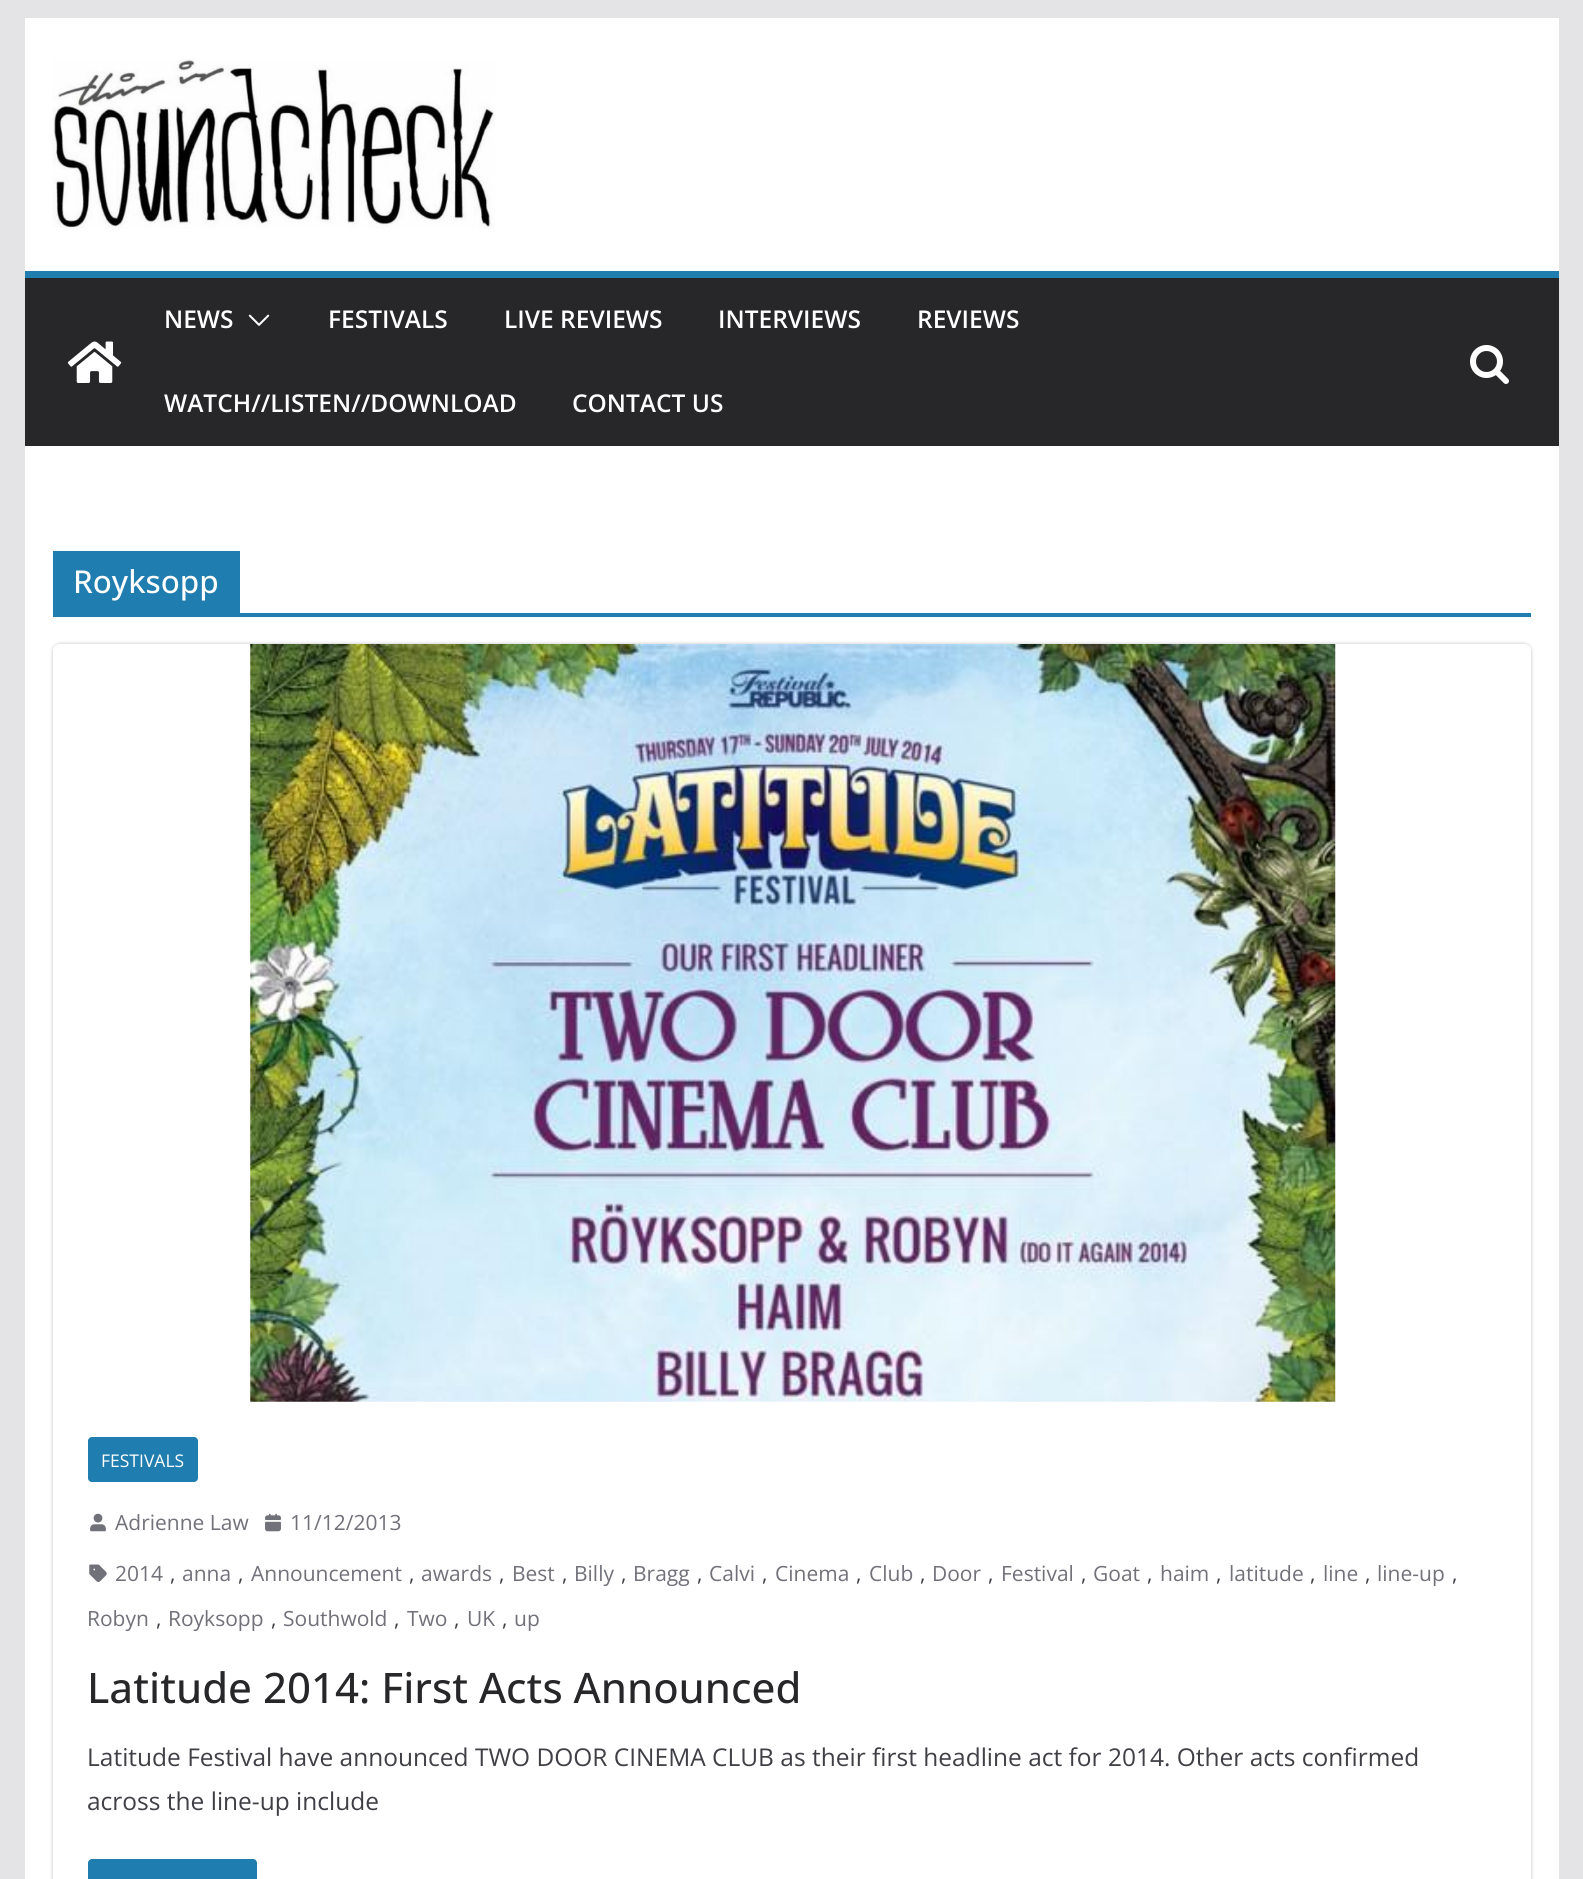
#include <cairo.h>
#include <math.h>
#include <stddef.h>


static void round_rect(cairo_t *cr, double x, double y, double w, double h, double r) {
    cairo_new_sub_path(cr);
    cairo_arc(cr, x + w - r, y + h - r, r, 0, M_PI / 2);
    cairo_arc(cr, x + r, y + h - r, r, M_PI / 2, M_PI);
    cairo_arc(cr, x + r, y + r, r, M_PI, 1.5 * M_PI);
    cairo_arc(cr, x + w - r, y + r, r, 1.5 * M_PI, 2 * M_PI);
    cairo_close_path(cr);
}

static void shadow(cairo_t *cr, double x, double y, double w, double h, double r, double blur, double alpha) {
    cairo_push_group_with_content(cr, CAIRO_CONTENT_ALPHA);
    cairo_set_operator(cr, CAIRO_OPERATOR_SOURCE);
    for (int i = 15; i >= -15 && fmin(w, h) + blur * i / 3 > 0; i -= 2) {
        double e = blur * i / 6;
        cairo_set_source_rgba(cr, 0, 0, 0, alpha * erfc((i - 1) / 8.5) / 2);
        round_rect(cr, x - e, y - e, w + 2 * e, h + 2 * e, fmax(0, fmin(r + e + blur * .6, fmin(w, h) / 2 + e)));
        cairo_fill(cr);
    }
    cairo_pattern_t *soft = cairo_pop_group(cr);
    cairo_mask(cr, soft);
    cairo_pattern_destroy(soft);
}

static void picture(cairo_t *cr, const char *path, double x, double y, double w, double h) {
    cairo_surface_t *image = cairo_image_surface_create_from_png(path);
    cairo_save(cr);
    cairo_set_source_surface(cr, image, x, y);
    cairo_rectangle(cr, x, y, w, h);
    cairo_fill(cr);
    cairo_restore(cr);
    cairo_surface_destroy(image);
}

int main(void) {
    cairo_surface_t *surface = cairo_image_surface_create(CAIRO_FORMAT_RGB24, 1583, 1879);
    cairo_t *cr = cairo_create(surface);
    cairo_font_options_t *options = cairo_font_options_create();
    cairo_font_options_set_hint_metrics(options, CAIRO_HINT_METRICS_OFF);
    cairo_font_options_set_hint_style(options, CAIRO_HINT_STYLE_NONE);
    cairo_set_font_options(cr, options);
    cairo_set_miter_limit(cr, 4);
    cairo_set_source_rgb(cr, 0.894, 0.894, 0.906);
    cairo_paint(cr);
    cairo_set_source_rgb(cr, 1, 1, 1);
    cairo_rectangle(cr, 25, 18, 1534, 253);
    cairo_fill(cr);
    picture(cr, "img1.png", 52, 59, 443, 170);
    cairo_set_source_rgb(cr, 0.153, 0.153, 0.165);
    cairo_rectangle(cr, 25, 278, 1534, 168);
    cairo_fill(cr);
    cairo_set_source_rgb(cr, 0.125, 0.49, 0.686);
    cairo_rectangle(cr, 25, 271, 1534, 7);
    cairo_fill(cr);
    picture(cr, "img2.png", 67, 341, 55, 42);
    cairo_select_font_face(cr, "Open Sans SemiBold", CAIRO_FONT_SLANT_NORMAL, CAIRO_FONT_WEIGHT_NORMAL);
    cairo_set_font_size(cr, 24.5);
    cairo_set_source_rgb(cr, 1, 1, 1);
    cairo_move_to(cr, 164, 328);
    cairo_show_text(cr, "NEWS");
    picture(cr, "img3.png", 248, 314, 22, 12);
    cairo_move_to(cr, 328, 328);
    cairo_show_text(cr, "FESTIVALS");
    cairo_move_to(cr, 504, 328);
    cairo_show_text(cr, "LIVE REVIEWS");
    cairo_move_to(cr, 718, 328);
    cairo_show_text(cr, "INTERVIEWS");
    cairo_move_to(cr, 917, 328);
    cairo_show_text(cr, "REVIEWS");
    cairo_move_to(cr, 164, 412);
    cairo_show_text(cr, "WATCH//LISTEN//DOWNLOAD");
    cairo_move_to(cr, 572, 412);
    cairo_show_text(cr, "CONTACT US");
    picture(cr, "img4.png", 1470, 345, 39, 39);
    cairo_rectangle(cr, 25, 446, 1534, 1433);
    cairo_fill(cr);
    cairo_set_source_rgb(cr, 0.125, 0.49, 0.686);
    cairo_rectangle(cr, 53, 613, 1478, 4);
    cairo_fill(cr);
    cairo_rectangle(cr, 53, 551, 187, 62);
    cairo_fill(cr);
    cairo_select_font_face(cr, "Open Sans Medium", CAIRO_FONT_SLANT_NORMAL, CAIRO_FONT_WEIGHT_NORMAL);
    cairo_set_font_size(cr, 31.5);
    cairo_set_source_rgb(cr, 1, 1, 1);
    cairo_move_to(cr, 73, 593);
    cairo_show_text(cr, "Royksopp");
    cairo_save(cr);
    cairo_set_fill_rule(cr, CAIRO_FILL_RULE_EVEN_ODD);
    cairo_new_path(cr);
    cairo_move_to(cr, 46, 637);
    cairo_line_to(cr, 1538, 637);
    cairo_line_to(cr, 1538, 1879);
    cairo_line_to(cr, 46, 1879);
    cairo_close_path(cr);
    cairo_move_to(cr, 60, 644);
    cairo_line_to(cr, 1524, 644);
    cairo_curve_to(cr, 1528, 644, 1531, 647, 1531, 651);
    cairo_line_to(cr, 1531, 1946);
    cairo_curve_to(cr, 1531, 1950, 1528, 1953, 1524, 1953);
    cairo_line_to(cr, 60, 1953);
    cairo_curve_to(cr, 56, 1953, 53, 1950, 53, 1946);
    cairo_line_to(cr, 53, 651);
    cairo_curve_to(cr, 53, 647, 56, 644, 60, 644);
    cairo_close_path(cr);
    cairo_clip(cr);
    cairo_set_source_rgb(cr, 0, 0, 0);
    shadow(cr, 53, 644, 1478, 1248, 7, 2, 0.24);
    cairo_restore(cr);
    picture(cr, "img5.png", 250, 644, 1086, 758);
    cairo_set_source_rgb(cr, 0.125, 0.49, 0.686);
    round_rect(cr, 88, 1437, 110, 45, 4);
    cairo_fill(cr);
    cairo_select_font_face(cr, "Open Sans", CAIRO_FONT_SLANT_NORMAL, CAIRO_FONT_WEIGHT_NORMAL);
    cairo_set_font_size(cr, 17.5);
    cairo_set_source_rgb(cr, 1, 1, 1);
    cairo_move_to(cr, 101, 1467);
    cairo_show_text(cr, "FESTIVALS");
    picture(cr, "img6.png", 90, 1513, 16, 19);
    cairo_set_font_size(cr, 21);
    cairo_set_source_rgb(cr, 0.443, 0.443, 0.478);
    cairo_move_to(cr, 115, 1530);
    cairo_show_text(cr, "Adrienne Law");
    picture(cr, "img7.png", 265, 1513, 16, 19);
    cairo_move_to(cr, 290, 1530);
    cairo_show_text(cr, "11/12/2013");
    picture(cr, "img8.png", 89, 1564, 18, 18);
    cairo_move_to(cr, 115, 1581);
    cairo_show_text(cr, "2014");
    cairo_set_source_rgb(cr, 0.247, 0.247, 0.275);
    cairo_move_to(cr, 170, 1581);
    cairo_show_text(cr, ",");
    cairo_set_source_rgb(cr, 0.443, 0.443, 0.478);
    cairo_move_to(cr, 182, 1581);
    cairo_show_text(cr, "anna");
    cairo_set_source_rgb(cr, 0.247, 0.247, 0.275);
    cairo_move_to(cr, 238, 1581);
    cairo_show_text(cr, ",");
    cairo_set_source_rgb(cr, 0.443, 0.443, 0.478);
    cairo_move_to(cr, 251, 1581);
    cairo_show_text(cr, "Announcement");
    cairo_set_source_rgb(cr, 0.247, 0.247, 0.275);
    cairo_move_to(cr, 409, 1581);
    cairo_show_text(cr, ",");
    cairo_set_source_rgb(cr, 0.443, 0.443, 0.478);
    cairo_move_to(cr, 421, 1581);
    cairo_show_text(cr, "awards");
    cairo_set_source_rgb(cr, 0.247, 0.247, 0.275);
    cairo_move_to(cr, 499, 1581);
    cairo_show_text(cr, ",");
    cairo_set_source_rgb(cr, 0.443, 0.443, 0.478);
    cairo_move_to(cr, 512, 1581);
    cairo_show_text(cr, "Best");
    cairo_set_source_rgb(cr, 0.247, 0.247, 0.275);
    cairo_move_to(cr, 562, 1581);
    cairo_show_text(cr, ",");
    cairo_set_source_rgb(cr, 0.443, 0.443, 0.478);
    cairo_move_to(cr, 574, 1581);
    cairo_show_text(cr, "Billy");
    cairo_set_source_rgb(cr, 0.247, 0.247, 0.275);
    cairo_move_to(cr, 621, 1581);
    cairo_show_text(cr, ",");
    cairo_set_source_rgb(cr, 0.443, 0.443, 0.478);
    cairo_move_to(cr, 633, 1581);
    cairo_show_text(cr, "Bragg");
    cairo_set_source_rgb(cr, 0.247, 0.247, 0.275);
    cairo_move_to(cr, 697, 1581);
    cairo_show_text(cr, ",");
    cairo_set_source_rgb(cr, 0.443, 0.443, 0.478);
    cairo_move_to(cr, 709, 1581);
    cairo_show_text(cr, "Calvi");
    cairo_set_source_rgb(cr, 0.247, 0.247, 0.275);
    cairo_move_to(cr, 762, 1581);
    cairo_show_text(cr, ",");
    cairo_set_source_rgb(cr, 0.443, 0.443, 0.478);
    cairo_move_to(cr, 775, 1581);
    cairo_show_text(cr, "Cinema");
    cairo_set_source_rgb(cr, 0.247, 0.247, 0.275);
    cairo_move_to(cr, 856, 1581);
    cairo_show_text(cr, ",");
    cairo_set_source_rgb(cr, 0.443, 0.443, 0.478);
    cairo_move_to(cr, 869, 1581);
    cairo_show_text(cr, "Club");
    cairo_set_source_rgb(cr, 0.247, 0.247, 0.275);
    cairo_move_to(cr, 920, 1581);
    cairo_show_text(cr, ",");
    cairo_set_source_rgb(cr, 0.443, 0.443, 0.478);
    cairo_move_to(cr, 932, 1581);
    cairo_show_text(cr, "Door");
    cairo_set_source_rgb(cr, 0.247, 0.247, 0.275);
    cairo_move_to(cr, 988, 1581);
    cairo_show_text(cr, ",");
    cairo_set_source_rgb(cr, 0.443, 0.443, 0.478);
    cairo_move_to(cr, 1001, 1581);
    cairo_show_text(cr, "Festival");
    cairo_set_source_rgb(cr, 0.247, 0.247, 0.275);
    cairo_move_to(cr, 1081, 1581);
    cairo_show_text(cr, ",");
    cairo_set_source_rgb(cr, 0.443, 0.443, 0.478);
    cairo_move_to(cr, 1093, 1581);
    cairo_show_text(cr, "Goat");
    cairo_set_source_rgb(cr, 0.247, 0.247, 0.275);
    cairo_move_to(cr, 1147, 1581);
    cairo_show_text(cr, ",");
    cairo_set_source_rgb(cr, 0.443, 0.443, 0.478);
    cairo_move_to(cr, 1160, 1581);
    cairo_show_text(cr, "haim");
    cairo_set_source_rgb(cr, 0.247, 0.247, 0.275);
    cairo_move_to(cr, 1216, 1581);
    cairo_show_text(cr, ",");
    cairo_set_source_rgb(cr, 0.443, 0.443, 0.478);
    cairo_move_to(cr, 1229, 1581);
    cairo_show_text(cr, "latitude");
    cairo_set_source_rgb(cr, 0.247, 0.247, 0.275);
    cairo_move_to(cr, 1310, 1581);
    cairo_show_text(cr, ",");
    cairo_set_source_rgb(cr, 0.443, 0.443, 0.478);
    cairo_move_to(cr, 1323, 1581);
    cairo_show_text(cr, "line");
    cairo_set_source_rgb(cr, 0.247, 0.247, 0.275);
    cairo_move_to(cr, 1365, 1581);
    cairo_show_text(cr, ",");
    cairo_set_source_rgb(cr, 0.443, 0.443, 0.478);
    cairo_move_to(cr, 1377, 1581);
    cairo_show_text(cr, "line-up");
    cairo_set_source_rgb(cr, 0.247, 0.247, 0.275);
    cairo_move_to(cr, 1452, 1581);
    cairo_show_text(cr, ",");
    cairo_set_source_rgb(cr, 0.443, 0.443, 0.478);
    cairo_move_to(cr, 87, 1626);
    cairo_show_text(cr, "Robyn");
    cairo_set_source_rgb(cr, 0.247, 0.247, 0.275);
    cairo_move_to(cr, 156, 1626);
    cairo_show_text(cr, ",");
    cairo_set_source_rgb(cr, 0.443, 0.443, 0.478);
    cairo_move_to(cr, 168, 1626);
    cairo_show_text(cr, "Royksopp");
    cairo_set_source_rgb(cr, 0.247, 0.247, 0.275);
    cairo_move_to(cr, 271, 1626);
    cairo_show_text(cr, ",");
    cairo_set_source_rgb(cr, 0.443, 0.443, 0.478);
    cairo_move_to(cr, 283, 1626);
    cairo_show_text(cr, "Southwold");
    cairo_set_source_rgb(cr, 0.247, 0.247, 0.275);
    cairo_move_to(cr, 394, 1626);
    cairo_show_text(cr, ",");
    cairo_set_source_rgb(cr, 0.443, 0.443, 0.478);
    cairo_move_to(cr, 407, 1626);
    cairo_show_text(cr, "Two");
    cairo_set_source_rgb(cr, 0.247, 0.247, 0.275);
    cairo_move_to(cr, 454, 1626);
    cairo_show_text(cr, ",");
    cairo_set_source_rgb(cr, 0.443, 0.443, 0.478);
    cairo_move_to(cr, 467, 1626);
    cairo_show_text(cr, "UK");
    cairo_set_source_rgb(cr, 0.247, 0.247, 0.275);
    cairo_move_to(cr, 502, 1626);
    cairo_show_text(cr, ",");
    cairo_set_source_rgb(cr, 0.443, 0.443, 0.478);
    cairo_move_to(cr, 514, 1626);
    cairo_show_text(cr, "up");
    cairo_select_font_face(cr, "Open Sans Medium", CAIRO_FONT_SLANT_NORMAL, CAIRO_FONT_WEIGHT_NORMAL);
    cairo_set_font_size(cr, 42);
    cairo_set_source_rgb(cr, 0.153, 0.153, 0.165);
    cairo_move_to(cr, 87, 1703);
    cairo_show_text(cr, "Latitude 2014: First Acts Announced");
    cairo_select_font_face(cr, "Open Sans", CAIRO_FONT_SLANT_NORMAL, CAIRO_FONT_WEIGHT_NORMAL);
    cairo_set_font_size(cr, 24.5);
    cairo_set_source_rgb(cr, 0.247, 0.247, 0.275);
    cairo_move_to(cr, 87, 1766);
    cairo_show_text(cr, "Latitude Festival have announced TWO DOOR CINEMA CLUB as their first headline act for 2014. Other acts confirmed");
    cairo_move_to(cr, 87, 1810);
    cairo_show_text(cr, "across the line-up include");
    cairo_set_source_rgb(cr, 0.125, 0.49, 0.686);
    round_rect(cr, 88, 1859, 169, 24, 4);
    cairo_fill(cr);
    cairo_surface_write_to_png(surface, "page.png");
    cairo_font_options_destroy(options);
    cairo_destroy(cr);
    cairo_surface_destroy(surface);
    return 0;
}
